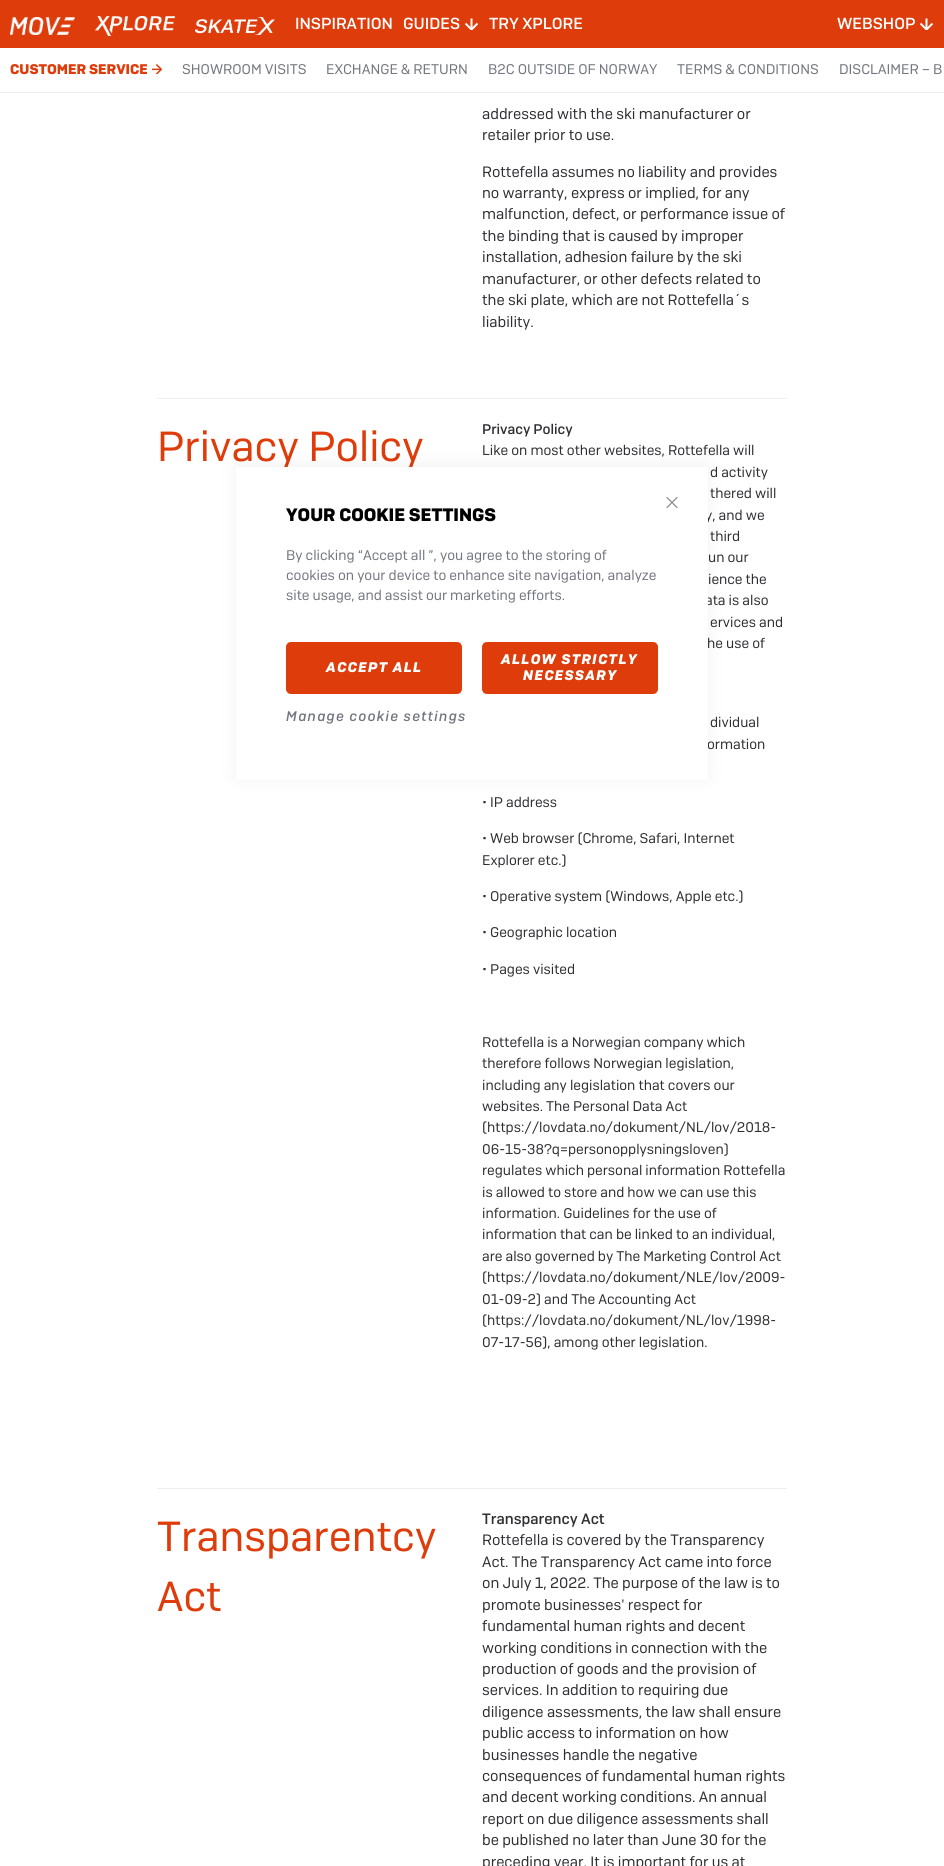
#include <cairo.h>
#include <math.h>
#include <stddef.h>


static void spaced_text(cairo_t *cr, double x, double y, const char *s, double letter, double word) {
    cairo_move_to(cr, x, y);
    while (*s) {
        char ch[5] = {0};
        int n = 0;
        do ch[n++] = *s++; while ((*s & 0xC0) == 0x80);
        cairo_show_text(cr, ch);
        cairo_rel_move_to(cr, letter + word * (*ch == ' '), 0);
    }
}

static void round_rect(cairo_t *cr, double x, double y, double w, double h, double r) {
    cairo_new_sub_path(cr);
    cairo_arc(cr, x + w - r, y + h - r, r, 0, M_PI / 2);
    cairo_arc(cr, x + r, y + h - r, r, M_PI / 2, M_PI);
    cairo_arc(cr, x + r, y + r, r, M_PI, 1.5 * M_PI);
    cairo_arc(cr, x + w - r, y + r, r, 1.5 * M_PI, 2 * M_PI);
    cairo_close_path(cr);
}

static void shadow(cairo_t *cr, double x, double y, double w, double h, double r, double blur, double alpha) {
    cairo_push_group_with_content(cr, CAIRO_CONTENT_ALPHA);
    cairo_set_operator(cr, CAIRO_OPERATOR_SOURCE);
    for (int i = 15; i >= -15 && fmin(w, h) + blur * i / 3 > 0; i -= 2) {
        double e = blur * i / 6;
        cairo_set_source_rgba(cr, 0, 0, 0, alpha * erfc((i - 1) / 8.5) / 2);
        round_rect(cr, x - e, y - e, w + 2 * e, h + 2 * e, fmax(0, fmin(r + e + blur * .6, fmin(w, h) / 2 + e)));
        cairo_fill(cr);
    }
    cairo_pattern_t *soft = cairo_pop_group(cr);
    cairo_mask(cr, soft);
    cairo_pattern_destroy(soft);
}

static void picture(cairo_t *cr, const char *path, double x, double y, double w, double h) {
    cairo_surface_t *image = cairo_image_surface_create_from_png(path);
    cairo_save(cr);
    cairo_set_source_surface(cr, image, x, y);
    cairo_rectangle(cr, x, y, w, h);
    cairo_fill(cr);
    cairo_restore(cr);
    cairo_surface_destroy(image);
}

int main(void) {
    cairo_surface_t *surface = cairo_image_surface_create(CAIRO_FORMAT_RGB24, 944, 1866);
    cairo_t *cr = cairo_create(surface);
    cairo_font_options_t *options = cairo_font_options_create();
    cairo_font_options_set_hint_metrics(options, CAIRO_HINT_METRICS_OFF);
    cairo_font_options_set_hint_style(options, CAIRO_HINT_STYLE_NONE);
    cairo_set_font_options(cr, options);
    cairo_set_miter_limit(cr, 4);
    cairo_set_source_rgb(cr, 1, 1, 1);
    cairo_paint(cr);
    cairo_set_source_rgb(cr, 0.871, 0.235, 0.043);
    cairo_rectangle(cr, 0, 0, 944, 48);
    cairo_fill(cr);
    picture(cr, "img1.png", 10, 17, 65, 18);
    picture(cr, "img2.png", 95, 16, 80, 20);
    picture(cr, "img3.png", 195, 17, 80, 18);
    cairo_select_font_face(cr, "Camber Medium", CAIRO_FONT_SLANT_NORMAL, CAIRO_FONT_WEIGHT_NORMAL);
    cairo_set_font_size(cr, 16);
    cairo_set_source_rgb(cr, 1, 1, 1);
    cairo_move_to(cr, 295, 29);
    cairo_show_text(cr, "INSPIRATION");
    cairo_move_to(cr, 403, 29);
    cairo_show_text(cr, "GUIDES");
    cairo_save(cr);
    cairo_rectangle(cr, 465, 18, 13, 12);
    cairo_clip(cr);
    cairo_new_path(cr);
    cairo_move_to(cr, 465.5, 23.5);
    cairo_line_to(cr, 471.5, 29.5);
    cairo_line_to(cr, 477.5, 23.5);
    cairo_stroke(cr);
    cairo_restore(cr);
    cairo_new_path(cr);
    cairo_move_to(cr, 471.5, 18.5);
    cairo_line_to(cr, 471.5, 29.5);
    cairo_stroke(cr);
    cairo_move_to(cr, 489, 29);
    cairo_show_text(cr, "TRY XPLORE");
    cairo_move_to(cr, 837, 29);
    cairo_show_text(cr, "WEBSHOP");
    cairo_save(cr);
    cairo_rectangle(cr, 920, 18, 13, 12);
    cairo_clip(cr);
    cairo_new_path(cr);
    cairo_move_to(cr, 920.5, 23.5);
    cairo_line_to(cr, 926.5, 29.5);
    cairo_line_to(cr, 932.5, 23.5);
    cairo_stroke(cr);
    cairo_restore(cr);
    cairo_new_path(cr);
    cairo_move_to(cr, 926.5, 18.5);
    cairo_line_to(cr, 926.5, 29.5);
    cairo_stroke(cr);
    cairo_set_source_rgb(cr, 0.929, 0.933, 0.949);
    cairo_rectangle(cr, 0, 92, 944, 1);
    cairo_fill(cr);
    cairo_select_font_face(cr, "Camber", CAIRO_FONT_SLANT_NORMAL, CAIRO_FONT_WEIGHT_BOLD);
    cairo_set_font_size(cr, 14);
    cairo_set_source_rgb(cr, 0.871, 0.235, 0.043);
    cairo_move_to(cr, 10, 74);
    cairo_show_text(cr, "CUSTOMER SERVICE");
    picture(cr, "img4.png", 152, 64, 10, 10);
    cairo_select_font_face(cr, "Camber", CAIRO_FONT_SLANT_NORMAL, CAIRO_FONT_WEIGHT_NORMAL);
    cairo_set_source_rgb(cr, 0.451, 0.459, 0.502);
    cairo_move_to(cr, 182, 74);
    cairo_show_text(cr, "SHOWROOM VISITS");
    cairo_move_to(cr, 326, 74);
    cairo_show_text(cr, "EXCHANGE & RETURN");
    cairo_move_to(cr, 488, 74);
    cairo_show_text(cr, "B2C OUTSIDE OF NORWAY");
    cairo_move_to(cr, 677, 74);
    cairo_show_text(cr, "TERMS & CONDITIONS");
    cairo_move_to(cr, 839, 74);
    cairo_show_text(cr, "DISCLAIMER – B");
    cairo_set_font_size(cr, 15);
    cairo_set_source_rgb(cr, 0.18, 0.184, 0.2);
    cairo_move_to(cr, 482, 119);
    cairo_show_text(cr, "addressed with the ski manufacturer or");
    cairo_move_to(cr, 482, 140);
    cairo_show_text(cr, "retailer prior to use.");
    cairo_move_to(cr, 482, 177);
    cairo_show_text(cr, "Rottefella assumes no liability and provides");
    cairo_move_to(cr, 482, 198);
    cairo_show_text(cr, "no warranty, express or implied, for any");
    cairo_move_to(cr, 482, 219);
    cairo_show_text(cr, "malfunction, defect, or performance issue of");
    cairo_move_to(cr, 482, 241);
    cairo_show_text(cr, "the binding that is caused by improper");
    cairo_move_to(cr, 482, 262);
    cairo_show_text(cr, "installation, adhesion failure by the ski");
    cairo_move_to(cr, 482, 284);
    cairo_show_text(cr, "manufacturer, or other defects related to");
    cairo_move_to(cr, 482, 305);
    cairo_show_text(cr, "the ski plate, which are not Rottefella´s");
    cairo_move_to(cr, 482, 327);
    cairo_show_text(cr, "liability.");
    cairo_set_source_rgb(cr, 0.933, 0.933, 0.933);
    cairo_rectangle(cr, 157, 398, 630, 1);
    cairo_fill(cr);
    cairo_set_font_size(cr, 42);
    cairo_set_source_rgb(cr, 0.871, 0.235, 0.043);
    cairo_move_to(cr, 157, 461);
    cairo_show_text(cr, "Privacy Policy");
    cairo_select_font_face(cr, "Camber Medium", CAIRO_FONT_SLANT_NORMAL, CAIRO_FONT_WEIGHT_NORMAL);
    cairo_set_font_size(cr, 14);
    cairo_set_source_rgb(cr, 0.18, 0.184, 0.2);
    cairo_move_to(cr, 482, 434);
    cairo_show_text(cr, "Privacy Policy");
    cairo_select_font_face(cr, "Camber", CAIRO_FONT_SLANT_NORMAL, CAIRO_FONT_WEIGHT_NORMAL);
    cairo_move_to(cr, 482, 455);
    cairo_show_text(cr, "Like on most other websites, Rottefella will");
    cairo_move_to(cr, 710, 477);
    cairo_show_text(cr, "d activity");
    cairo_move_to(cr, 710, 498);
    cairo_show_text(cr, "thered will");
    cairo_move_to(cr, 705, 520);
    cairo_show_text(cr, "y, and we");
    cairo_move_to(cr, 710, 541);
    cairo_show_text(cr, "third");
    cairo_move_to(cr, 708, 562);
    cairo_show_text(cr, "un our");
    cairo_move_to(cr, 708, 584);
    cairo_show_text(cr, "ience the");
    cairo_move_to(cr, 705, 605);
    cairo_show_text(cr, "ata is also");
    cairo_move_to(cr, 710, 627);
    cairo_show_text(cr, "ervices and");
    cairo_move_to(cr, 707, 648);
    cairo_show_text(cr, "he use of");
    cairo_move_to(cr, 710, 727);
    cairo_show_text(cr, "dividual");
    cairo_move_to(cr, 707, 749);
    cairo_show_text(cr, "ormation");
    cairo_move_to(cr, 482, 807);
    cairo_show_text(cr, "• IP address");
    cairo_move_to(cr, 482, 843);
    cairo_show_text(cr, "• Web browser (Chrome, Safari, Internet");
    cairo_move_to(cr, 482, 865);
    cairo_show_text(cr, "Explorer etc.)");
    cairo_move_to(cr, 482, 901);
    cairo_show_text(cr, "• Operative system (Windows, Apple etc.)");
    cairo_move_to(cr, 482, 937);
    cairo_show_text(cr, "• Geographic location");
    cairo_move_to(cr, 482, 974);
    cairo_show_text(cr, "• Pages visited");
    cairo_move_to(cr, 482, 1047);
    cairo_show_text(cr, "Rottefella is a Norwegian company which");
    cairo_move_to(cr, 482, 1068);
    cairo_show_text(cr, "therefore follows Norwegian legislation,");
    cairo_move_to(cr, 482, 1090);
    cairo_show_text(cr, "including any legislation that covers our");
    cairo_move_to(cr, 482, 1111);
    cairo_show_text(cr, "websites. The Personal Data Act");
    cairo_move_to(cr, 482, 1132);
    cairo_show_text(cr, "(https://lovdata.no/dokument/NL/lov/2018-");
    cairo_move_to(cr, 482, 1154);
    cairo_show_text(cr, "06-15-38?q=personopplysningsloven)");
    cairo_move_to(cr, 482, 1175);
    cairo_show_text(cr, "regulates which personal information Rottefella");
    cairo_move_to(cr, 482, 1197);
    cairo_show_text(cr, "is allowed to store and how we can use this");
    cairo_move_to(cr, 482, 1218);
    cairo_show_text(cr, "information. Guidelines for the use of");
    cairo_move_to(cr, 482, 1239);
    cairo_show_text(cr, "information that can be linked to an individual,");
    cairo_move_to(cr, 482, 1261);
    cairo_show_text(cr, "are also governed by The Marketing Control Act");
    cairo_move_to(cr, 482, 1282);
    cairo_show_text(cr, "(https://lovdata.no/dokument/NLE/lov/2009-");
    cairo_move_to(cr, 482, 1304);
    cairo_show_text(cr, "01-09-2) and The Accounting Act");
    cairo_move_to(cr, 482, 1325);
    cairo_show_text(cr, "(https://lovdata.no/dokument/NL/lov/1998-");
    cairo_move_to(cr, 482, 1347);
    cairo_show_text(cr, "07-17-56), among other legislation.");
    cairo_set_source_rgb(cr, 0.933, 0.933, 0.933);
    cairo_rectangle(cr, 157, 1488, 630, 1);
    cairo_fill(cr);
    cairo_set_font_size(cr, 42);
    cairo_set_source_rgb(cr, 0.871, 0.235, 0.043);
    cairo_move_to(cr, 157, 1551);
    cairo_show_text(cr, "Transparentcy");
    cairo_move_to(cr, 157, 1611);
    cairo_show_text(cr, "Act");
    cairo_select_font_face(cr, "Camber Medium", CAIRO_FONT_SLANT_NORMAL, CAIRO_FONT_WEIGHT_NORMAL);
    cairo_set_font_size(cr, 15);
    cairo_set_source_rgb(cr, 0.18, 0.184, 0.2);
    cairo_move_to(cr, 482, 1524);
    cairo_show_text(cr, "Transparency Act");
    cairo_select_font_face(cr, "Camber", CAIRO_FONT_SLANT_NORMAL, CAIRO_FONT_WEIGHT_NORMAL);
    cairo_move_to(cr, 482, 1545);
    cairo_show_text(cr, "Rottefella is covered by the Transparency");
    cairo_move_to(cr, 482, 1567);
    cairo_show_text(cr, "Act. The Transparency Act came into force");
    cairo_move_to(cr, 482, 1588);
    cairo_show_text(cr, "on July 1, 2022. The purpose of the law is to");
    cairo_move_to(cr, 482, 1610);
    cairo_show_text(cr, "promote businesses' respect for");
    cairo_move_to(cr, 482, 1631);
    cairo_show_text(cr, "fundamental human rights and decent");
    cairo_move_to(cr, 482, 1653);
    cairo_show_text(cr, "working conditions in connection with the");
    cairo_move_to(cr, 482, 1674);
    cairo_show_text(cr, "production of goods and the provision of");
    cairo_move_to(cr, 482, 1695);
    cairo_show_text(cr, "services. In addition to requiring due");
    cairo_move_to(cr, 482, 1717);
    cairo_show_text(cr, "diligence assessments, the law shall ensure");
    cairo_move_to(cr, 482, 1738);
    cairo_show_text(cr, "public access to information on how");
    cairo_move_to(cr, 482, 1760);
    cairo_show_text(cr, "businesses handle the negative");
    cairo_move_to(cr, 482, 1781);
    cairo_show_text(cr, "consequences of fundamental human rights");
    cairo_move_to(cr, 482, 1802);
    cairo_show_text(cr, "and decent working conditions. An annual");
    cairo_move_to(cr, 482, 1824);
    cairo_show_text(cr, "report on due diligence assessments shall");
    cairo_move_to(cr, 482, 1845);
    cairo_show_text(cr, "be published no later than June 30 for the");
    cairo_move_to(cr, 482, 1867);
    cairo_show_text(cr, "preceding year. It is important for us at");
    cairo_set_source_rgb(cr, 0, 0, 0);
    shadow(cr, 236, 465, 472, 313, 0, 9, 0.06);
    cairo_set_source_rgb(cr, 1, 1, 1);
    cairo_rectangle(cr, 236, 467, 472, 313);
    cairo_fill(cr);
    picture(cr, "img5.png", 666, 496, 12, 13);
    cairo_select_font_face(cr, "Camber", CAIRO_FONT_SLANT_NORMAL, CAIRO_FONT_WEIGHT_BOLD);
    cairo_set_font_size(cr, 18);
    cairo_set_source_rgb(cr, 0, 0, 0);
    cairo_move_to(cr, 286, 521);
    cairo_show_text(cr, "YOUR COOKIE SETTINGS");
    cairo_select_font_face(cr, "Camber", CAIRO_FONT_SLANT_NORMAL, CAIRO_FONT_WEIGHT_NORMAL);
    cairo_set_font_size(cr, 14);
    cairo_set_source_rgb(cr, 0.451, 0.459, 0.502);
    cairo_move_to(cr, 286, 560);
    cairo_show_text(cr, "By clicking “Accept all ”, you agree to the storing of");
    cairo_move_to(cr, 286, 580);
    cairo_show_text(cr, "cookies on your device to enhance site navigation, analyze");
    cairo_move_to(cr, 286, 600);
    cairo_show_text(cr, "site usage, and assist our marketing efforts.");
    cairo_set_source_rgb(cr, 0.871, 0.235, 0.043);
    round_rect(cr, 286, 642, 176, 52, 5);
    cairo_fill(cr);
    cairo_select_font_face(cr, "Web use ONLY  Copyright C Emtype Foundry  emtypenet", CAIRO_FONT_SLANT_ITALIC, CAIRO_FONT_WEIGHT_BOLD);
    cairo_set_source_rgb(cr, 1, 1, 1);
    spaced_text(cr, 326, 672, "ACCEPT ALL", 1.35, 0);
    cairo_set_source_rgb(cr, 0.871, 0.235, 0.043);
    round_rect(cr, 482, 642, 176, 52, 5);
    cairo_fill(cr);
    cairo_set_source_rgb(cr, 1, 1, 1);
    spaced_text(cr, 501, 664, "ALLOW STRICTLY", 1.35, 0);
    spaced_text(cr, 523, 680, "NECESSARY", 1.35, 0);
    cairo_select_font_face(cr, "Web use ONLY  Copyright C Emtype Foundry  emtypenet Medium", CAIRO_FONT_SLANT_ITALIC, CAIRO_FONT_WEIGHT_NORMAL);
    cairo_set_source_rgb(cr, 0.451, 0.459, 0.502);
    spaced_text(cr, 286, 721, "Manage cookie settings", 1.35, 0);
    cairo_surface_write_to_png(surface, "page.png");
    cairo_font_options_destroy(options);
    cairo_destroy(cr);
    cairo_surface_destroy(surface);
    return 0;
}
